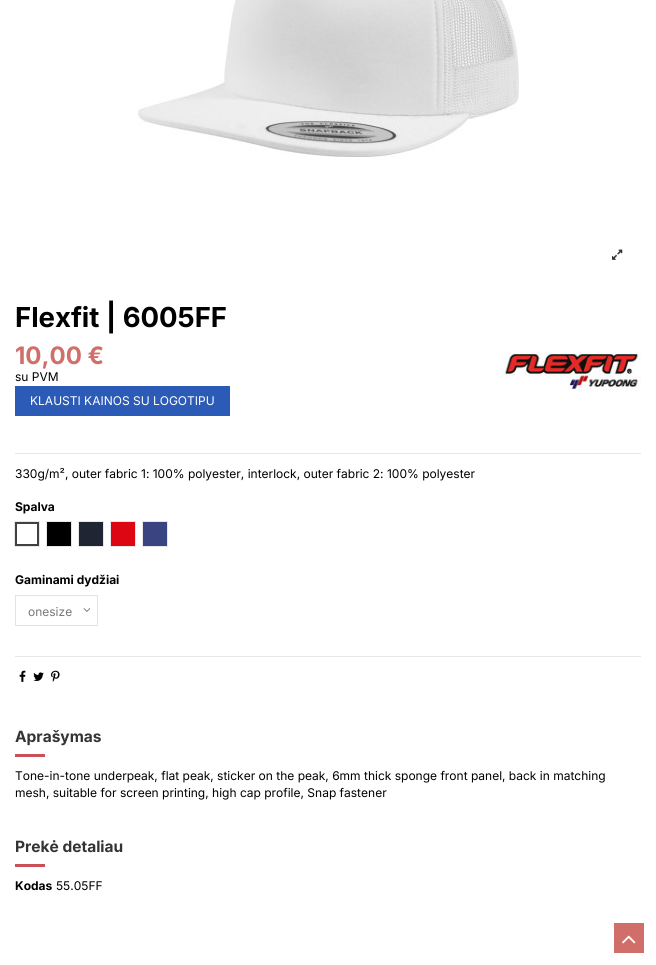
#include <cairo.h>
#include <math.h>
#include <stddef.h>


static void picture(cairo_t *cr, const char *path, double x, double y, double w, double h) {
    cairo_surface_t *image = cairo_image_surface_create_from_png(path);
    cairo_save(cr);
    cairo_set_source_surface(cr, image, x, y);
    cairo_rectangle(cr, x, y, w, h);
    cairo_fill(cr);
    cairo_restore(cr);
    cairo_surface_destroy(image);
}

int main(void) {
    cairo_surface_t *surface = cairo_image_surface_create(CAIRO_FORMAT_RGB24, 656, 965);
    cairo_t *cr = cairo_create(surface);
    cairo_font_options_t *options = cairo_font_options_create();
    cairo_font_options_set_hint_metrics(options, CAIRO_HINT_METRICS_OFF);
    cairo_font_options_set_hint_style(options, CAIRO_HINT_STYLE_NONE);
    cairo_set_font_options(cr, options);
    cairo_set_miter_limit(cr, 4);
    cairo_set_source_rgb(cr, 1, 1, 1);
    cairo_paint(cr);
    picture(cr, "img1.png", 138, 0, 381, 157);
    picture(cr, "img2.png", 612, 249, 11, 11);
    cairo_set_source_rgb(cr, 0.906, 0.906, 0.906);
    cairo_rectangle(cr, 15, 453, 626, 1);
    cairo_fill(cr);
    cairo_select_font_face(cr, "Inter", CAIRO_FONT_SLANT_NORMAL, CAIRO_FONT_WEIGHT_BOLD);
    cairo_set_font_size(cr, 27.5);
    cairo_set_source_rgb(cr, 0, 0, 0);
    cairo_move_to(cr, 15, 327);
    cairo_show_text(cr, "Flexfit | 6005FF");
    cairo_set_font_size(cr, 24);
    cairo_set_source_rgb(cr, 0.816, 0.431, 0.416);
    cairo_move_to(cr, 15, 364);
    cairo_show_text(cr, "10,00 €");
    cairo_select_font_face(cr, "Inter", CAIRO_FONT_SLANT_NORMAL, CAIRO_FONT_WEIGHT_NORMAL);
    cairo_set_font_size(cr, 12);
    cairo_set_source_rgb(cr, 0, 0, 0);
    cairo_move_to(cr, 15, 381);
    cairo_show_text(cr, "su PVM");
    picture(cr, "img3.png", 501, 353, 140, 38);
    cairo_set_source_rgb(cr, 0.173, 0.353, 0.718);
    cairo_rectangle(cr, 15, 386, 215, 30);
    cairo_fill(cr);
    cairo_set_source_rgb(cr, 1, 1, 1);
    cairo_move_to(cr, 30, 405);
    cairo_show_text(cr, "KLAUSTI KAINOS SU LOGOTIPU");
    cairo_set_source_rgb(cr, 0, 0, 0);
    cairo_move_to(cr, 15, 478);
    cairo_show_text(cr, "330g/m², outer fabric 1: 100% polyester, interlock, outer fabric 2: 100% polyester");
    cairo_select_font_face(cr, "Inter", CAIRO_FONT_SLANT_NORMAL, CAIRO_FONT_WEIGHT_BOLD);
    cairo_move_to(cr, 15, 511);
    cairo_show_text(cr, "Spalva");
    cairo_rectangle(cr, 16, 523, 22, 22);
    cairo_set_source_rgb(cr, 0.255, 0.255, 0.255);
    cairo_stroke(cr);
    cairo_rectangle(cr, 14.5, 521.5, 25, 25);
    cairo_set_source_rgb(cr, 0.906, 0.906, 0.906);
    cairo_set_line_width(cr, 1);
    cairo_stroke(cr);
    cairo_set_source_rgb(cr, 0, 0, 0);
    cairo_rectangle(cr, 46.5, 521.5, 25, 25);
    cairo_fill_preserve(cr);
    cairo_set_source_rgb(cr, 0.906, 0.906, 0.906);
    cairo_stroke(cr);
    cairo_set_source_rgb(cr, 0.122, 0.145, 0.196);
    cairo_rectangle(cr, 78.5, 521.5, 25, 25);
    cairo_fill_preserve(cr);
    cairo_set_source_rgb(cr, 0.906, 0.906, 0.906);
    cairo_stroke(cr);
    cairo_set_source_rgb(cr, 0.863, 0.031, 0.078);
    cairo_rectangle(cr, 110.5, 521.5, 25, 25);
    cairo_fill_preserve(cr);
    cairo_set_source_rgb(cr, 0.906, 0.906, 0.906);
    cairo_stroke(cr);
    cairo_set_source_rgb(cr, 0.224, 0.267, 0.502);
    cairo_rectangle(cr, 142.5, 521.5, 25, 25);
    cairo_fill_preserve(cr);
    cairo_set_source_rgb(cr, 0.906, 0.906, 0.906);
    cairo_stroke(cr);
    cairo_set_source_rgb(cr, 0, 0, 0);
    cairo_move_to(cr, 15, 584);
    cairo_show_text(cr, "Gaminami dydžiai");
    picture(cr, "img4.png", 83, 608, 8, 4);
    cairo_rectangle(cr, 15.5, 595.5, 82, 30);
    cairo_set_source_rgb(cr, 0.89, 0.89, 0.89);
    cairo_stroke(cr);
    cairo_select_font_face(cr, "Inter", CAIRO_FONT_SLANT_NORMAL, CAIRO_FONT_WEIGHT_NORMAL);
    cairo_set_source_rgb(cr, 0.467, 0.467, 0.467);
    cairo_move_to(cr, 28, 616);
    cairo_show_text(cr, "onesize");
    cairo_set_source_rgb(cr, 0.906, 0.906, 0.906);
    cairo_rectangle(cr, 15, 656, 626, 1);
    cairo_fill(cr);
    picture(cr, "img5.png", 19, 670, 7, 12);
    picture(cr, "img6.png", 33, 672, 11, 9);
    picture(cr, "img7.png", 51, 670, 9, 12);
    cairo_select_font_face(cr, "Inter", CAIRO_FONT_SLANT_NORMAL, CAIRO_FONT_WEIGHT_BOLD);
    cairo_set_font_size(cr, 15.5);
    cairo_set_source_rgb(cr, 0.2, 0.2, 0.2);
    cairo_move_to(cr, 15, 742);
    cairo_show_text(cr, "Aprašymas");
    cairo_set_source_rgb(cr, 0.792, 0.314, 0.345);
    cairo_rectangle(cr, 15, 754, 30, 3);
    cairo_fill(cr);
    cairo_select_font_face(cr, "Inter", CAIRO_FONT_SLANT_NORMAL, CAIRO_FONT_WEIGHT_NORMAL);
    cairo_set_font_size(cr, 12);
    cairo_set_source_rgb(cr, 0, 0, 0);
    cairo_move_to(cr, 15, 780);
    cairo_show_text(cr, "Tone-in-tone underpeak, flat peak, sticker on the peak, 6mm thick sponge front panel, back in matching");
    cairo_move_to(cr, 15, 797);
    cairo_show_text(cr, "mesh, suitable for screen printing, high cap profile, Snap fastener");
    cairo_select_font_face(cr, "Inter", CAIRO_FONT_SLANT_NORMAL, CAIRO_FONT_WEIGHT_BOLD);
    cairo_set_font_size(cr, 15.5);
    cairo_set_source_rgb(cr, 0.2, 0.2, 0.2);
    cairo_move_to(cr, 15, 852);
    cairo_show_text(cr, "Prekė detaliau");
    cairo_set_source_rgb(cr, 0.792, 0.314, 0.345);
    cairo_rectangle(cr, 15, 864, 30, 3);
    cairo_fill(cr);
    cairo_set_font_size(cr, 12);
    cairo_set_source_rgb(cr, 0, 0, 0);
    cairo_move_to(cr, 15, 890);
    cairo_show_text(cr, "Kodas");
    cairo_select_font_face(cr, "Inter", CAIRO_FONT_SLANT_NORMAL, CAIRO_FONT_WEIGHT_NORMAL);
    cairo_move_to(cr, 56, 890);
    cairo_show_text(cr, "55.05FF");
    cairo_set_source_rgb(cr, 0.816, 0.431, 0.416);
    cairo_rectangle(cr, 614, 923, 30, 30);
    cairo_fill(cr);
    picture(cr, "img8.png", 622, 935, 14, 9);
    cairo_surface_write_to_png(surface, "page.png");
    cairo_font_options_destroy(options);
    cairo_destroy(cr);
    cairo_surface_destroy(surface);
    return 0;
}
